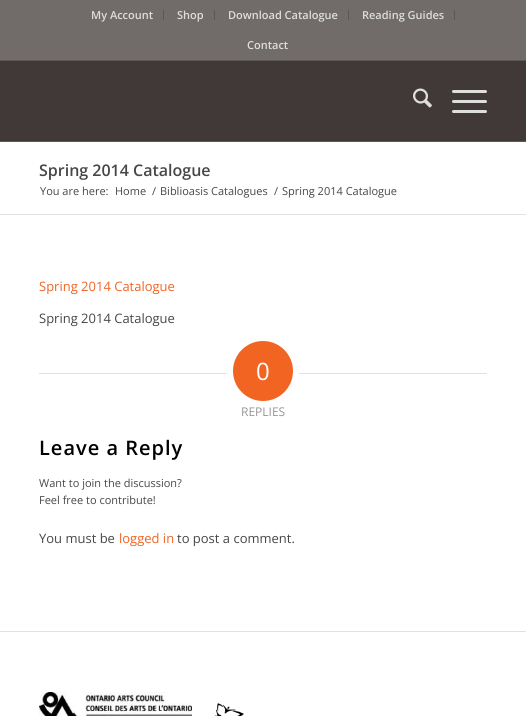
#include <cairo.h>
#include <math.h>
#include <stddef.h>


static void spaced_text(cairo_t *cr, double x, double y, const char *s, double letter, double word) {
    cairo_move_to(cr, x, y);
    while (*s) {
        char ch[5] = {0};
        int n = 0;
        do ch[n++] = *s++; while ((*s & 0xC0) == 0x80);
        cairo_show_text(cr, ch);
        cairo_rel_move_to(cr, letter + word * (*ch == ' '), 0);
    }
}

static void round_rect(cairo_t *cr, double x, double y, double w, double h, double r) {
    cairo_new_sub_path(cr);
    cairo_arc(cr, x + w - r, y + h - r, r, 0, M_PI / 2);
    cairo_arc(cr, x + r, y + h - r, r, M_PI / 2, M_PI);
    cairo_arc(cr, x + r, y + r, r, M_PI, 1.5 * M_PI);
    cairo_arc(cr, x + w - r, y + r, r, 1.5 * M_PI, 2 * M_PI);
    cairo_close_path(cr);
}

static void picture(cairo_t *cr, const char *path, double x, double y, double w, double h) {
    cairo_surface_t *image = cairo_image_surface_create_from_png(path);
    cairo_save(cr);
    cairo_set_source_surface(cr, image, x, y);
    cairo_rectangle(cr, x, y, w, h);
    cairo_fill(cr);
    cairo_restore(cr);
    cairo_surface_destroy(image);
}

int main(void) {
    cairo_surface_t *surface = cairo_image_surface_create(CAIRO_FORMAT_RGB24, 526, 716);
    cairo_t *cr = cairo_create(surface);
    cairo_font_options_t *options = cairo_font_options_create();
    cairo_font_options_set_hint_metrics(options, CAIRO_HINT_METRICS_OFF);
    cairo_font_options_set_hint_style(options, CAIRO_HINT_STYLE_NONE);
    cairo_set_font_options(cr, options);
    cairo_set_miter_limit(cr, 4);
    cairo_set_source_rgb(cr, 1, 1, 1);
    cairo_paint(cr);
    cairo_set_source_rgb(cr, 0.443, 0.42, 0.412);
    cairo_rectangle(cr, 0, 0, 526, 60);
    cairo_fill(cr);
    cairo_set_source_rgb(cr, 0.365, 0.341, 0.333);
    cairo_rectangle(cr, 0, 60, 526, 1);
    cairo_fill(cr);
    cairo_rectangle(cr, 163, 10, 1, 10);
    cairo_fill(cr);
    cairo_select_font_face(cr, "Open Sans SemiBold", CAIRO_FONT_SLANT_NORMAL, CAIRO_FONT_WEIGHT_NORMAL);
    cairo_set_font_size(cr, 11);
    cairo_set_source_rgb(cr, 0.871, 0.871, 0.871);
    cairo_move_to(cr, 91, 19);
    cairo_show_text(cr, "My Account");
    cairo_set_source_rgb(cr, 0.365, 0.341, 0.333);
    cairo_rectangle(cr, 214, 10, 1, 10);
    cairo_fill(cr);
    cairo_set_source_rgb(cr, 0.871, 0.871, 0.871);
    cairo_move_to(cr, 177, 19);
    cairo_show_text(cr, "Shop");
    cairo_set_source_rgb(cr, 0.365, 0.341, 0.333);
    cairo_rectangle(cr, 348, 10, 1, 10);
    cairo_fill(cr);
    cairo_set_source_rgb(cr, 0.871, 0.871, 0.871);
    cairo_move_to(cr, 228, 19);
    cairo_show_text(cr, "Download Catalogue");
    cairo_set_source_rgb(cr, 0.365, 0.341, 0.333);
    cairo_rectangle(cr, 454, 10, 1, 10);
    cairo_fill(cr);
    cairo_set_source_rgb(cr, 0.871, 0.871, 0.871);
    cairo_move_to(cr, 362, 19);
    cairo_show_text(cr, "Reading Guides");
    cairo_move_to(cr, 247, 49);
    cairo_show_text(cr, "Contact");
    cairo_set_source_rgb(cr, 0.255, 0.224, 0.216);
    cairo_rectangle(cr, 0, 61, 526, 80);
    cairo_fill(cr);
    cairo_set_source_rgb(cr, 0.365, 0.341, 0.333);
    cairo_rectangle(cr, 0, 141, 526, 1);
    cairo_fill(cr);
    picture(cr, "img1.png", 413, 88, 19, 20);
    cairo_set_source_rgb(cr, 0.871, 0.871, 0.871);
    round_rect(cr, 452, 100, 35, 3, 1.5);
    cairo_fill(cr);
    round_rect(cr, 452, 90, 35, 3, 1.5);
    cairo_fill(cr);
    round_rect(cr, 452, 110, 35, 3, 1.5);
    cairo_fill(cr);
    cairo_set_font_size(cr, 16);
    cairo_set_source_rgb(cr, 0.278, 0.278, 0.278);
    cairo_move_to(cr, 39, 176);
    cairo_show_text(cr, "Spring 2014 Catalogue");
    cairo_select_font_face(cr, "Open Sans", CAIRO_FONT_SLANT_NORMAL, CAIRO_FONT_WEIGHT_NORMAL);
    cairo_set_font_size(cr, 11);
    cairo_move_to(cr, 40, 195);
    cairo_show_text(cr, "You are here:");
    cairo_move_to(cr, 115, 195);
    cairo_show_text(cr, "Home");
    cairo_move_to(cr, 152, 195);
    cairo_show_text(cr, "/");
    cairo_move_to(cr, 160, 195);
    cairo_show_text(cr, "Biblioasis Catalogues");
    cairo_move_to(cr, 274, 195);
    cairo_show_text(cr, "/");
    cairo_move_to(cr, 282, 195);
    cairo_show_text(cr, "Spring 2014 Catalogue");
    cairo_set_source_rgb(cr, 0.882, 0.882, 0.882);
    cairo_rectangle(cr, 0, 214, 526, 1);
    cairo_fill(cr);
    cairo_set_font_size(cr, 13);
    cairo_set_source_rgb(cr, 0.949, 0.392, 0.133);
    cairo_move_to(cr, 39, 291);
    cairo_show_text(cr, "Spring 2014 Catalogue");
    cairo_set_source_rgb(cr, 0.278, 0.278, 0.278);
    cairo_move_to(cr, 39, 323);
    cairo_show_text(cr, "Spring 2014 Catalogue");
    cairo_set_source_rgb(cr, 0.882, 0.882, 0.882);
    cairo_rectangle(cr, 39, 373, 188, 1);
    cairo_fill(cr);
    cairo_set_source_rgb(cr, 0.949, 0.392, 0.133);
    cairo_arc(cr, 263, 371, 30, 0, 2 * M_PI);
    cairo_fill(cr);
    cairo_set_font_size(cr, 24);
    cairo_set_source_rgb(cr, 1, 1, 1);
    cairo_move_to(cr, 256, 380);
    cairo_show_text(cr, "0");
    cairo_set_source_rgb(cr, 0.882, 0.882, 0.882);
    cairo_rectangle(cr, 299, 373, 188, 1);
    cairo_fill(cr);
    cairo_set_font_size(cr, 12);
    cairo_set_source_rgb(cr, 0.588, 0.588, 0.588);
    cairo_move_to(cr, 241, 416);
    cairo_show_text(cr, "REPLIES");
    cairo_select_font_face(cr, "Open Sans SemiBold", CAIRO_FONT_SLANT_NORMAL, CAIRO_FONT_WEIGHT_NORMAL);
    cairo_set_font_size(cr, 20);
    cairo_set_source_rgb(cr, 0, 0, 0);
    spaced_text(cr, 39, 455, "Leave a Reply", 1, 0);
    cairo_select_font_face(cr, "Open Sans", CAIRO_FONT_SLANT_NORMAL, CAIRO_FONT_WEIGHT_NORMAL);
    cairo_set_font_size(cr, 11);
    cairo_set_source_rgb(cr, 0.278, 0.278, 0.278);
    cairo_move_to(cr, 39, 487);
    cairo_show_text(cr, "Want to join the discussion?");
    cairo_move_to(cr, 39, 504);
    cairo_show_text(cr, "Feel free to contribute!");
    cairo_set_font_size(cr, 13);
    cairo_move_to(cr, 39, 543);
    cairo_show_text(cr, "You must be");
    cairo_set_source_rgb(cr, 0.949, 0.392, 0.133);
    cairo_move_to(cr, 119, 543);
    cairo_show_text(cr, "logged in");
    cairo_set_source_rgb(cr, 0.278, 0.278, 0.278);
    cairo_move_to(cr, 177, 543);
    cairo_show_text(cr, "to post a comment.");
    cairo_set_source_rgb(cr, 0.882, 0.882, 0.882);
    cairo_rectangle(cr, 0, 631, 526, 1);
    cairo_fill(cr);
    picture(cr, "img2.png", 39, 692, 153, 24);
    picture(cr, "img3.png", 214, 703, 30, 13);
    cairo_surface_write_to_png(surface, "page.png");
    cairo_font_options_destroy(options);
    cairo_destroy(cr);
    cairo_surface_destroy(surface);
    return 0;
}
